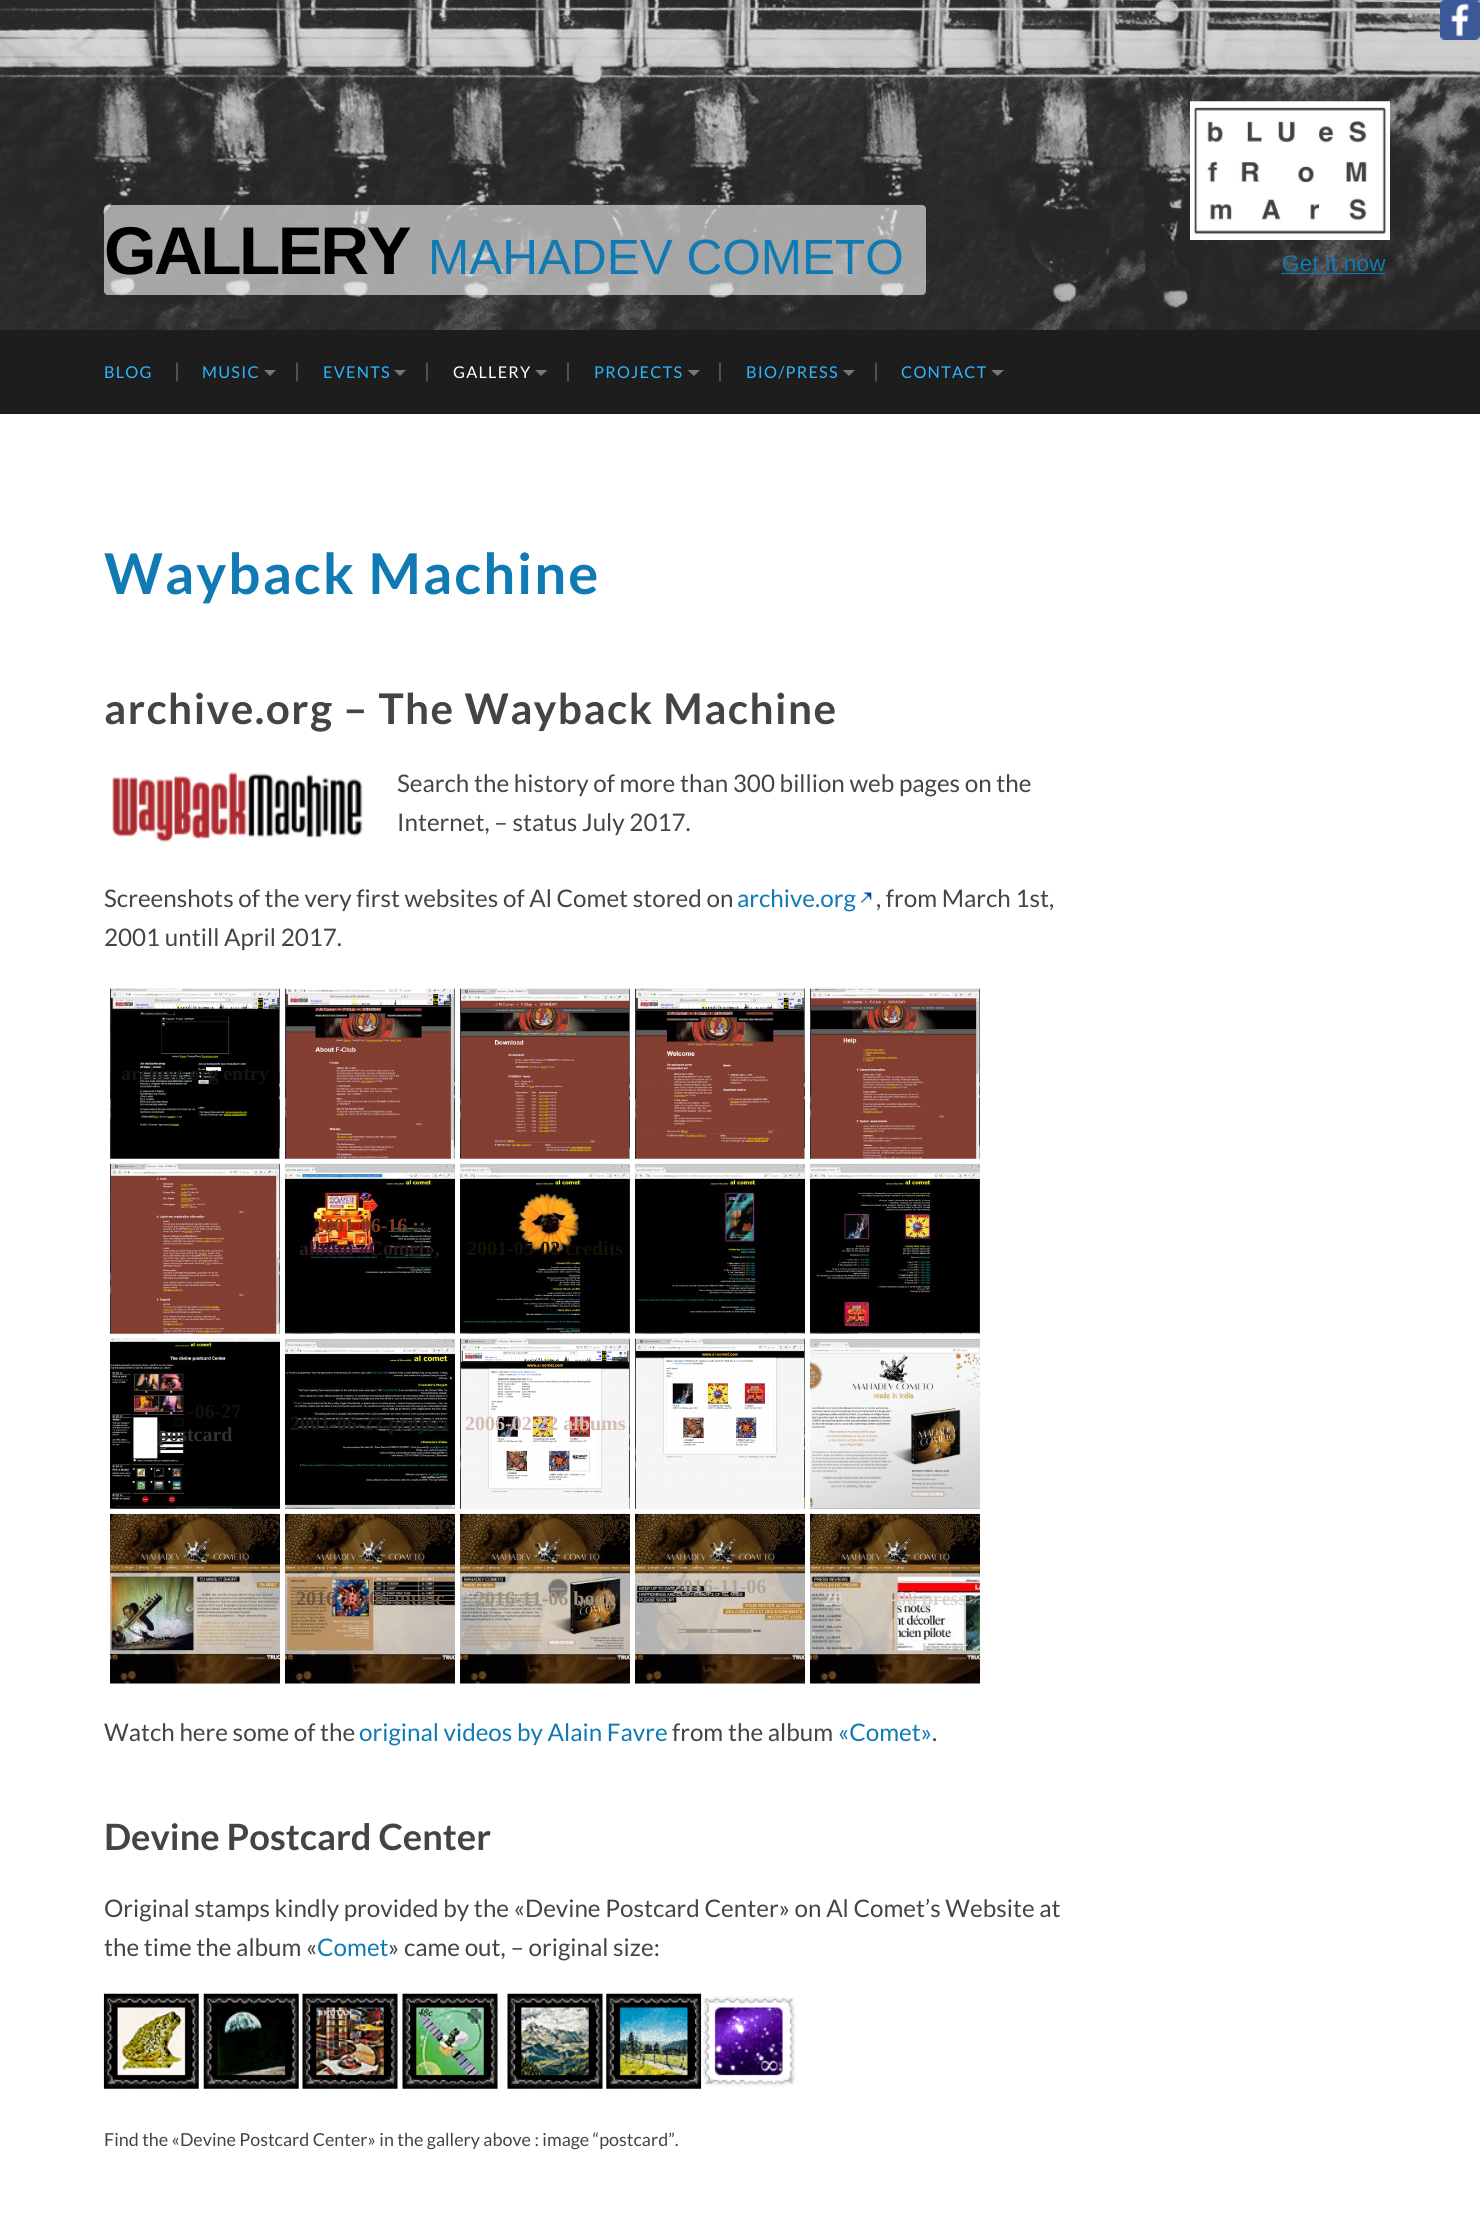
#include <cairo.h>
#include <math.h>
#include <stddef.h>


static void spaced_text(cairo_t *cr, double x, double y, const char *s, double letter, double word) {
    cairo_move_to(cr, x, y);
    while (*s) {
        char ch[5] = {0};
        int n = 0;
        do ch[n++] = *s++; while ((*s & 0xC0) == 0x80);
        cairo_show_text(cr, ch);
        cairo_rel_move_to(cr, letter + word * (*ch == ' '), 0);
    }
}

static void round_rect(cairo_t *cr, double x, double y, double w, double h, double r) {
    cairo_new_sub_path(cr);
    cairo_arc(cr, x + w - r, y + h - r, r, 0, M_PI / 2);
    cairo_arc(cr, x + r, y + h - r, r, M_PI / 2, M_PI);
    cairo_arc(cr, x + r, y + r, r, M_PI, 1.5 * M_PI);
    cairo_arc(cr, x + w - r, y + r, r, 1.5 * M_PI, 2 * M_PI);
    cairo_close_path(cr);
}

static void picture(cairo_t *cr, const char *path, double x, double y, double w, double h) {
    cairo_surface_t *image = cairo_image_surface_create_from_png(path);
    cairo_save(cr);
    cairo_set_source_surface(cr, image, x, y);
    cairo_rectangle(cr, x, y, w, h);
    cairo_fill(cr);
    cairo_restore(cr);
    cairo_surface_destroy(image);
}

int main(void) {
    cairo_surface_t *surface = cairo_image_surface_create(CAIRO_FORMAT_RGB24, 1480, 2227);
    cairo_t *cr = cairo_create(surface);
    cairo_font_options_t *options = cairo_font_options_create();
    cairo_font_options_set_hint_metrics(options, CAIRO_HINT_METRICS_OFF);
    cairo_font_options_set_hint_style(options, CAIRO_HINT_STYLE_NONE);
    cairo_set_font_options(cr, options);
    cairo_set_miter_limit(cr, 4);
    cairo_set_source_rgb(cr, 1, 1, 1);
    cairo_paint(cr);
    picture(cr, "img2.png", 0, 0, 1480, 330);
    picture(cr, "img1.png", 1440, 0, 40, 40);
    cairo_set_source_rgba(cr, 0.98, 0.98, 0.98, 0.6);
    round_rect(cr, 104, 205, 822, 90, 4);
    cairo_fill(cr);
    cairo_select_font_face(cr, "Liberation Sans", CAIRO_FONT_SLANT_NORMAL, CAIRO_FONT_WEIGHT_BOLD);
    cairo_set_font_size(cr, 67.5);
    cairo_set_source_rgb(cr, 0, 0, 0);
    spaced_text(cr, 104, 274, "GALLERY", -2.5, 0);
    cairo_select_font_face(cr, "Liberation Sans", CAIRO_FONT_SLANT_NORMAL, CAIRO_FONT_WEIGHT_NORMAL);
    cairo_set_font_size(cr, 49.5);
    cairo_set_source_rgb(cr, 0.059, 0.478, 0.702);
    cairo_move_to(cr, 428, 274);
    cairo_show_text(cr, "MAHADEV COMETO");
    picture(cr, "img3.png", 1190, 101, 200, 139);
    cairo_set_font_size(cr, 22.5);
    spaced_text(cr, 1282, 271, "Get it now", 0.25, 0);
    cairo_rectangle(cr, 1281, 273, 104, 1);
    cairo_fill(cr);
    cairo_set_source_rgb(cr, 0.114, 0.114, 0.114);
    cairo_rectangle(cr, 0, 330, 1480, 84);
    cairo_fill(cr);
    cairo_select_font_face(cr, "Lato", CAIRO_FONT_SLANT_NORMAL, CAIRO_FONT_WEIGHT_NORMAL);
    cairo_set_font_size(cr, 16.25);
    cairo_set_source_rgb(cr, 0.176, 0.714, 1);
    spaced_text(cr, 104, 378, "BLOG", 1.25, 0);
    cairo_set_font_size(cr, 20);
    cairo_set_source_rgb(cr, 0.4, 0.4, 0.4);
    cairo_move_to(cr, 174, 378);
    cairo_show_text(cr, "|");
    cairo_set_font_size(cr, 16.25);
    cairo_set_source_rgb(cr, 0.176, 0.714, 1);
    spaced_text(cr, 202, 378, "MUSIC", 1.25, 0);
    cairo_set_source_rgb(cr, 0.467, 0.467, 0.467);
    cairo_new_path(cr);
    cairo_move_to(cr, 264, 370);
    cairo_line_to(cr, 276, 370);
    cairo_line_to(cr, 270, 376);
    cairo_close_path(cr);
    cairo_fill(cr);
    cairo_set_font_size(cr, 20);
    cairo_set_source_rgb(cr, 0.4, 0.4, 0.4);
    cairo_move_to(cr, 294, 378);
    cairo_show_text(cr, "|");
    cairo_set_font_size(cr, 16.25);
    cairo_set_source_rgb(cr, 0.176, 0.714, 1);
    spaced_text(cr, 323, 378, "EVENTS", 1.25, 0);
    cairo_set_source_rgb(cr, 0.467, 0.467, 0.467);
    cairo_new_path(cr);
    cairo_move_to(cr, 394, 370);
    cairo_line_to(cr, 406, 370);
    cairo_line_to(cr, 400, 376);
    cairo_close_path(cr);
    cairo_fill(cr);
    cairo_set_font_size(cr, 20);
    cairo_set_source_rgb(cr, 0.4, 0.4, 0.4);
    cairo_move_to(cr, 424, 378);
    cairo_show_text(cr, "|");
    cairo_set_font_size(cr, 16.25);
    cairo_set_source_rgb(cr, 1, 1, 1);
    spaced_text(cr, 453, 378, "GALLERY", 1.25, 0);
    cairo_set_source_rgb(cr, 0.467, 0.467, 0.467);
    cairo_new_path(cr);
    cairo_move_to(cr, 535, 370);
    cairo_line_to(cr, 547.5, 370);
    cairo_line_to(cr, 541, 376);
    cairo_close_path(cr);
    cairo_fill(cr);
    cairo_set_font_size(cr, 20);
    cairo_set_source_rgb(cr, 0.4, 0.4, 0.4);
    cairo_move_to(cr, 565, 378);
    cairo_show_text(cr, "|");
    cairo_set_font_size(cr, 16.25);
    cairo_set_source_rgb(cr, 0.176, 0.714, 1);
    spaced_text(cr, 594, 378, "PROJECTS", 1.25, 0);
    cairo_set_source_rgb(cr, 0.467, 0.467, 0.467);
    cairo_new_path(cr);
    cairo_move_to(cr, 687.5, 370);
    cairo_line_to(cr, 700, 370);
    cairo_line_to(cr, 694, 376);
    cairo_close_path(cr);
    cairo_fill(cr);
    cairo_set_font_size(cr, 20);
    cairo_set_source_rgb(cr, 0.4, 0.4, 0.4);
    cairo_move_to(cr, 717, 378);
    cairo_show_text(cr, "|");
    cairo_set_font_size(cr, 16.25);
    cairo_set_source_rgb(cr, 0.176, 0.714, 1);
    spaced_text(cr, 746, 378, "BIO/PRESS", 1.25, 0);
    cairo_set_source_rgb(cr, 0.467, 0.467, 0.467);
    cairo_new_path(cr);
    cairo_move_to(cr, 842.5, 370);
    cairo_line_to(cr, 855, 370);
    cairo_line_to(cr, 849, 376);
    cairo_close_path(cr);
    cairo_fill(cr);
    cairo_set_font_size(cr, 20);
    cairo_set_source_rgb(cr, 0.4, 0.4, 0.4);
    cairo_move_to(cr, 873, 378);
    cairo_show_text(cr, "|");
    cairo_set_font_size(cr, 16.25);
    cairo_set_source_rgb(cr, 0.176, 0.714, 1);
    spaced_text(cr, 901, 378, "CONTACT", 1.25, 0);
    cairo_set_source_rgb(cr, 0.467, 0.467, 0.467);
    cairo_new_path(cr);
    cairo_move_to(cr, 991, 370);
    cairo_line_to(cr, 1004, 370);
    cairo_line_to(cr, 997.5, 376);
    cairo_close_path(cr);
    cairo_fill(cr);
    cairo_select_font_face(cr, "Lato", CAIRO_FONT_SLANT_NORMAL, CAIRO_FONT_WEIGHT_BOLD);
    cairo_set_font_size(cr, 56.25);
    cairo_set_source_rgb(cr, 0.059, 0.478, 0.702);
    spaced_text(cr, 104, 594, "Wayback Machine", 2, 0);
    cairo_set_font_size(cr, 42.3);
    cairo_set_source_rgb(cr, 0.267, 0.267, 0.267);
    spaced_text(cr, 104, 724, "archive.org – The Wayback Machine", 1.5, 0);
    picture(cr, "img4.png", 112, 771, 251, 72);
    cairo_select_font_face(cr, "Lato", CAIRO_FONT_SLANT_NORMAL, CAIRO_FONT_WEIGHT_NORMAL);
    cairo_set_font_size(cr, 24.2);
    cairo_move_to(cr, 397, 792);
    cairo_show_text(cr, "Search the history of more than 300 billion web pages on the");
    cairo_move_to(cr, 397, 831);
    cairo_show_text(cr, "Internet, – status July 2017.");
    cairo_move_to(cr, 104, 907);
    cairo_show_text(cr, "Screenshots of the very first websites of Al Comet stored on");
    cairo_set_source_rgb(cr, 0.059, 0.478, 0.702);
    cairo_move_to(cr, 737, 907);
    cairo_show_text(cr, "archive.org");
    picture(cr, "img5.png", 861, 892, 11, 11);
    cairo_set_source_rgb(cr, 0.267, 0.267, 0.267);
    cairo_move_to(cr, 876, 907);
    cairo_show_text(cr, ", from March 1st,");
    cairo_move_to(cr, 104, 946);
    cairo_show_text(cr, "2001 untill April 2017.");
    picture(cr, "img6.png", 110, 988, 170, 171);
    cairo_select_font_face(cr, "Liberation Serif", CAIRO_FONT_SLANT_NORMAL, CAIRO_FONT_WEIGHT_BOLD);
    cairo_set_font_size(cr, 20);
    cairo_set_source_rgb(cr, 0.082, 0.086, 0.082);
    cairo_move_to(cr, 121, 1080);
    cairo_show_text(cr, "archive.org entry");
    picture(cr, "img7.png", 285, 988, 170, 171);
    picture(cr, "img8.png", 460, 988, 170, 171);
    picture(cr, "img9.png", 635, 988, 170, 171);
    picture(cr, "img10.png", 810, 988, 170, 171);
    picture(cr, "img11.png", 110, 1163, 170, 171);
    picture(cr, "img12.png", 285, 1163, 170, 171);
    cairo_set_source_rgb(cr, 0.478, 0.231, 0.122);
    cairo_move_to(cr, 314, 1232);
    cairo_show_text(cr, "2001-06-16 ::");
    cairo_set_source_rgb(cr, 0.188, 0.102, 0.133);
    cairo_move_to(cr, 299, 1255);
    cairo_show_text(cr, "album «Comet»,");
    picture(cr, "img13.png", 460, 1163, 170, 171);
    cairo_set_source_rgb(cr, 0.09, 0.063, 0.024);
    cairo_move_to(cr, 467, 1255);
    cairo_show_text(cr, "2001-05-02 credits");
    picture(cr, "img14.png", 635, 1163, 170, 171);
    picture(cr, "img15.png", 810, 1163, 170, 171);
    picture(cr, "img16.png", 110, 1338, 170, 171);
    cairo_set_source_rgb(cr, 0.082, 0.059, 0.067);
    cairo_move_to(cr, 188, 1418);
    cairo_show_text(cr, "-06-27");
    cairo_set_source_rgb(cr, 0.196, 0.196, 0.196);
    cairo_move_to(cr, 158, 1441);
    cairo_show_text(cr, "postcard");
    picture(cr, "img17.png", 285, 1338, 170, 171);
    cairo_set_source_rgb(cr, 0.098, 0.106, 0.106);
    cairo_move_to(cr, 290, 1430);
    cairo_show_text(cr, "2001-06-27 project");
    picture(cr, "img18.png", 460, 1338, 170, 171);
    cairo_set_source_rgb(cr, 0.827, 0.745, 0.718);
    cairo_move_to(cr, 465, 1430);
    cairo_show_text(cr, "2006-02-22 albums");
    picture(cr, "img19.png", 635, 1338, 170, 171);
    picture(cr, "img20.png", 810, 1338, 170, 171);
    picture(cr, "img21.png", 110, 1513, 170, 171);
    picture(cr, "img22.png", 635, 1513, 170, 171);
    cairo_set_source_rgb(cr, 0.675, 0.647, 0.612);
    cairo_move_to(cr, 673, 1593);
    cairo_show_text(cr, "2016-11-06");
    picture(cr, "img23.png", 285, 1513, 170, 171);
    cairo_set_source_rgb(cr, 0.42, 0.329, 0.271);
    cairo_move_to(cr, 296, 1605);
    cairo_show_text(cr, "2016-11-06 music");
    picture(cr, "img24.png", 460, 1513, 170, 171);
    cairo_set_source_rgb(cr, 0.616, 0.573, 0.502);
    cairo_move_to(cr, 475, 1605);
    cairo_show_text(cr, "2016-11-06 book");
    picture(cr, "img25.png", 810, 1513, 170, 171);
    cairo_set_source_rgb(cr, 0.855, 0.824, 0.796);
    cairo_move_to(cr, 823, 1605);
    cairo_show_text(cr, "20");
    cairo_move_to(cr, 890, 1605);
    cairo_show_text(cr, "-06 press");
    cairo_select_font_face(cr, "Lato", CAIRO_FONT_SLANT_NORMAL, CAIRO_FONT_WEIGHT_NORMAL);
    cairo_set_font_size(cr, 24.2);
    cairo_set_source_rgb(cr, 0.267, 0.267, 0.267);
    cairo_move_to(cr, 104, 1741);
    cairo_show_text(cr, "Watch here some of the");
    cairo_set_source_rgb(cr, 0.059, 0.478, 0.702);
    cairo_move_to(cr, 359, 1741);
    cairo_show_text(cr, "original videos by Alain Favre");
    cairo_set_source_rgb(cr, 0.267, 0.267, 0.267);
    cairo_move_to(cr, 672, 1741);
    cairo_show_text(cr, "from the album");
    cairo_set_source_rgb(cr, 0.059, 0.478, 0.702);
    cairo_move_to(cr, 838, 1741);
    cairo_show_text(cr, "«Comet»");
    cairo_set_source_rgb(cr, 0.267, 0.267, 0.267);
    cairo_move_to(cr, 932, 1741);
    cairo_show_text(cr, ".");
    cairo_select_font_face(cr, "Lato", CAIRO_FONT_SLANT_NORMAL, CAIRO_FONT_WEIGHT_BOLD);
    cairo_set_font_size(cr, 36.25);
    cairo_move_to(cr, 104, 1850);
    cairo_show_text(cr, "Devine Postcard Center");
    cairo_select_font_face(cr, "Lato", CAIRO_FONT_SLANT_NORMAL, CAIRO_FONT_WEIGHT_NORMAL);
    cairo_set_font_size(cr, 24.2);
    cairo_move_to(cr, 104, 1917);
    cairo_show_text(cr, "Original stamps kindly provided by the «Devine Postcard Center» on Al Comet’s Website at");
    cairo_move_to(cr, 104, 1956);
    cairo_show_text(cr, "the time the album «");
    cairo_set_source_rgb(cr, 0.059, 0.478, 0.702);
    cairo_move_to(cr, 317, 1956);
    cairo_show_text(cr, "Comet");
    cairo_set_source_rgb(cr, 0.267, 0.267, 0.267);
    cairo_move_to(cr, 388, 1956);
    cairo_show_text(cr, "» came out, – original size:");
    picture(cr, "img26.png", 103, 1993, 96, 96);
    picture(cr, "img27.png", 203, 1993, 96, 96);
    picture(cr, "img28.png", 302, 1993, 96, 96);
    picture(cr, "img29.png", 402, 1993, 96, 96);
    picture(cr, "img30.png", 507, 1993, 96, 96);
    picture(cr, "img31.png", 606, 1993, 96, 96);
    picture(cr, "img32.png", 701, 1994, 95, 95);
    cairo_set_font_size(cr, 17.9);
    cairo_move_to(cr, 104, 2146);
    cairo_show_text(cr, "Find the «Devine Postcard Center» in the gallery above : image “postcard”.");
    cairo_surface_write_to_png(surface, "page.png");
    cairo_font_options_destroy(options);
    cairo_destroy(cr);
    cairo_surface_destroy(surface);
    return 0;
}
